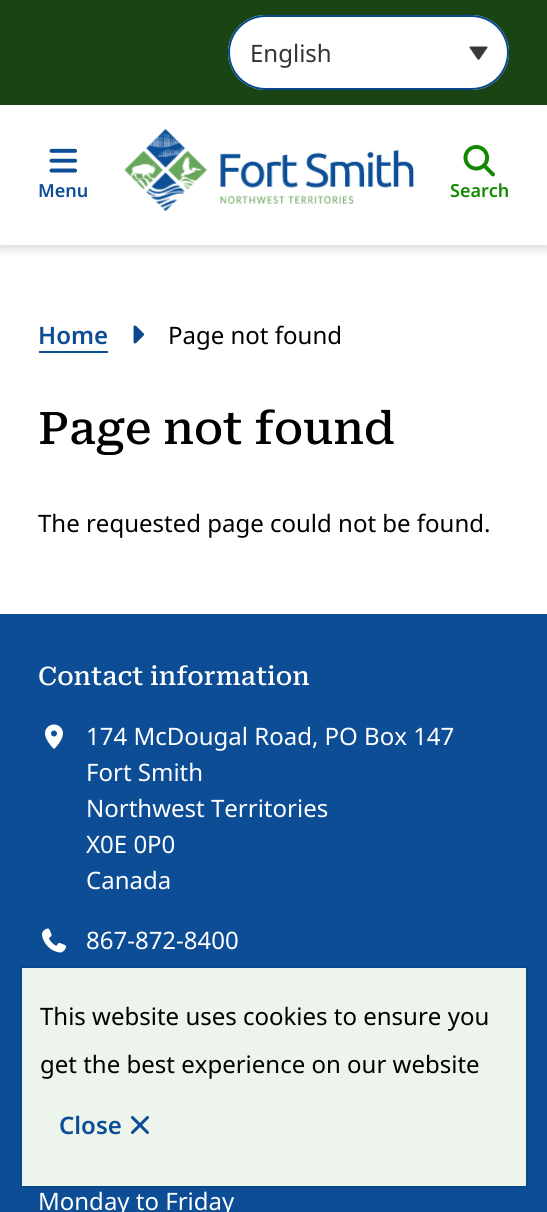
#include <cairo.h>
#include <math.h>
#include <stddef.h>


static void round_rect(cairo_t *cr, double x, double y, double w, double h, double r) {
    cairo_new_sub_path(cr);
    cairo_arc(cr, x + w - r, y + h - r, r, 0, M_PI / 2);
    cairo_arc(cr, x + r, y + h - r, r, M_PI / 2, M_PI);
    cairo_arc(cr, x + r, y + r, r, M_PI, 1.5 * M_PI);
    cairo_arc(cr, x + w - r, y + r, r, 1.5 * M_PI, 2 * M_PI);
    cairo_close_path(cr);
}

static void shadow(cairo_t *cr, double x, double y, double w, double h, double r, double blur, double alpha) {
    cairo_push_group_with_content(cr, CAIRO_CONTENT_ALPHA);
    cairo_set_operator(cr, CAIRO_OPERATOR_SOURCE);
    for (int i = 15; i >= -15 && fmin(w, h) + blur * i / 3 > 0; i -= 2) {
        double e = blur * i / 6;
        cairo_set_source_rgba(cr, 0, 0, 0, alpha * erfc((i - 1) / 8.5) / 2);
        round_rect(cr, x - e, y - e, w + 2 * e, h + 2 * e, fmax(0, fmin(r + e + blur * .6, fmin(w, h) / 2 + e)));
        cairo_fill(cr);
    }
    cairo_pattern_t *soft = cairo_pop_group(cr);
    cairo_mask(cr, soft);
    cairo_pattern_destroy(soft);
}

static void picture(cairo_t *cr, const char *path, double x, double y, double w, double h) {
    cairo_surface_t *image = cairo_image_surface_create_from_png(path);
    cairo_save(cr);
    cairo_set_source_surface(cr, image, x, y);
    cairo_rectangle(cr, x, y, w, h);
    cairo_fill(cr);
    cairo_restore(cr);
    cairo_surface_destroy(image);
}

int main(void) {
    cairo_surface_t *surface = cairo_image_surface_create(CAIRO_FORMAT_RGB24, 547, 1212);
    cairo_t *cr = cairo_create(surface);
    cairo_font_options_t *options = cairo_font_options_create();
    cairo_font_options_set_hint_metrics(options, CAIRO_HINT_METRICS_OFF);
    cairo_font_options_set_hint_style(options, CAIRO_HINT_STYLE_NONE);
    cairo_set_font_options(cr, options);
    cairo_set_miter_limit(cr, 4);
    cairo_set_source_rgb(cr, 1, 1, 1);
    cairo_paint(cr);
    cairo_set_source_rgb(cr, 0, 0, 0);
    shadow(cr, 0, 5, 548, 244, 0, 4.5, 0.15);
    cairo_set_source_rgb(cr, 0.102, 0.267, 0.075);
    cairo_rectangle(cr, 0, 0, 547, 105);
    cairo_fill(cr);
    cairo_set_source_rgb(cr, 1, 1, 1);
    round_rect(cr, 228, 15, 281, 75, 37.5);
    cairo_fill(cr);
    picture(cr, "img1.png", 469, 46, 19, 14);
    round_rect(cr, 229, 16, 279, 73, 36.5);
    cairo_set_source_rgb(cr, 0.031, 0.282, 0.549);
    cairo_stroke(cr);
    cairo_select_font_face(cr, "Noto Sans", CAIRO_FONT_SLANT_NORMAL, CAIRO_FONT_WEIGHT_NORMAL);
    cairo_set_font_size(cr, 24);
    cairo_set_source_rgb(cr, 0.2, 0.2, 0.2);
    cairo_move_to(cr, 250, 62);
    cairo_show_text(cr, "English");
    cairo_set_source_rgb(cr, 1, 1, 1);
    cairo_rectangle(cr, 0, 105, 547, 140);
    cairo_fill(cr);
    picture(cr, "img2.png", 49, 148, 28, 25);
    cairo_select_font_face(cr, "Noto Sans SemiBold", CAIRO_FONT_SLANT_NORMAL, CAIRO_FONT_WEIGHT_NORMAL);
    cairo_set_font_size(cr, 18);
    cairo_set_source_rgb(cr, 0.051, 0.302, 0.588);
    cairo_move_to(cr, 38, 197);
    cairo_show_text(cr, "Menu");
    picture(cr, "img3.png", 124, 129, 290, 83);
    picture(cr, "img4.png", 463, 144, 32, 33);
    cairo_set_source_rgb(cr, 0.071, 0.541, 0);
    cairo_move_to(cr, 450, 197);
    cairo_show_text(cr, "Search");
    cairo_set_font_size(cr, 24);
    cairo_set_source_rgb(cr, 0.051, 0.302, 0.588);
    cairo_move_to(cr, 38, 344);
    cairo_show_text(cr, "Home");
    cairo_rectangle(cr, 39, 351, 69, 2);
    cairo_fill(cr);
    picture(cr, "img5.png", 133, 325, 11, 19);
    cairo_select_font_face(cr, "Noto Sans", CAIRO_FONT_SLANT_NORMAL, CAIRO_FONT_WEIGHT_NORMAL);
    cairo_set_source_rgb(cr, 0, 0, 0);
    cairo_move_to(cr, 168, 344);
    cairo_show_text(cr, "Page not found");
    cairo_select_font_face(cr, "Roboto Serif Medium", CAIRO_FONT_SLANT_NORMAL, CAIRO_FONT_WEIGHT_NORMAL);
    cairo_set_font_size(cr, 45);
    cairo_move_to(cr, 38, 444);
    cairo_show_text(cr, "Page not found");
    cairo_select_font_face(cr, "Noto Sans", CAIRO_FONT_SLANT_NORMAL, CAIRO_FONT_WEIGHT_NORMAL);
    cairo_set_font_size(cr, 24);
    cairo_move_to(cr, 38, 532);
    cairo_show_text(cr, "The requested page could not be found.");
    cairo_set_source_rgb(cr, 0.051, 0.302, 0.588);
    cairo_rectangle(cr, 0, 614, 547, 598);
    cairo_fill(cr);
    cairo_select_font_face(cr, "Roboto Serif Medium", CAIRO_FONT_SLANT_NORMAL, CAIRO_FONT_WEIGHT_NORMAL);
    cairo_set_font_size(cr, 25.5);
    cairo_set_source_rgb(cr, 1, 1, 1);
    cairo_move_to(cr, 38, 685);
    cairo_show_text(cr, "Contact information");
    picture(cr, "img6.png", 45, 724, 18, 25);
    cairo_select_font_face(cr, "Noto Sans", CAIRO_FONT_SLANT_NORMAL, CAIRO_FONT_WEIGHT_NORMAL);
    cairo_set_font_size(cr, 24);
    cairo_move_to(cr, 86, 745);
    cairo_show_text(cr, "174 McDougal Road, PO Box 147");
    cairo_move_to(cr, 86, 781);
    cairo_show_text(cr, "Fort Smith");
    cairo_move_to(cr, 86, 817);
    cairo_show_text(cr, "Northwest Territories");
    cairo_move_to(cr, 86, 853);
    cairo_show_text(cr, "X0E 0P0");
    cairo_move_to(cr, 86, 889);
    cairo_show_text(cr, "Canada");
    picture(cr, "img7.png", 42, 928, 24, 25);
    cairo_move_to(cr, 86, 949);
    cairo_show_text(cr, "867-872-8400");
    cairo_move_to(cr, 38, 1210);
    cairo_show_text(cr, "Monday to Friday");
    cairo_set_source_rgb(cr, 0.922, 0.957, 0.922);
    cairo_rectangle(cr, 21, 967, 506, 220);
    cairo_fill_preserve(cr);
    cairo_set_source_rgb(cr, 0.031, 0.282, 0.549);
    cairo_stroke(cr);
    cairo_set_source_rgb(cr, 0, 0, 0);
    cairo_move_to(cr, 40, 1025);
    cairo_show_text(cr, "This website uses cookies to ensure you");
    cairo_move_to(cr, 40, 1073);
    cairo_show_text(cr, "get the best experience on our website");
    cairo_select_font_face(cr, "Noto Sans SemiBold", CAIRO_FONT_SLANT_NORMAL, CAIRO_FONT_WEIGHT_NORMAL);
    cairo_set_source_rgb(cr, 0.051, 0.302, 0.588);
    cairo_move_to(cr, 59, 1134);
    cairo_show_text(cr, "Close");
    picture(cr, "img8.png", 130, 1116, 19, 18);
    cairo_surface_write_to_png(surface, "page.png");
    cairo_font_options_destroy(options);
    cairo_destroy(cr);
    cairo_surface_destroy(surface);
    return 0;
}
